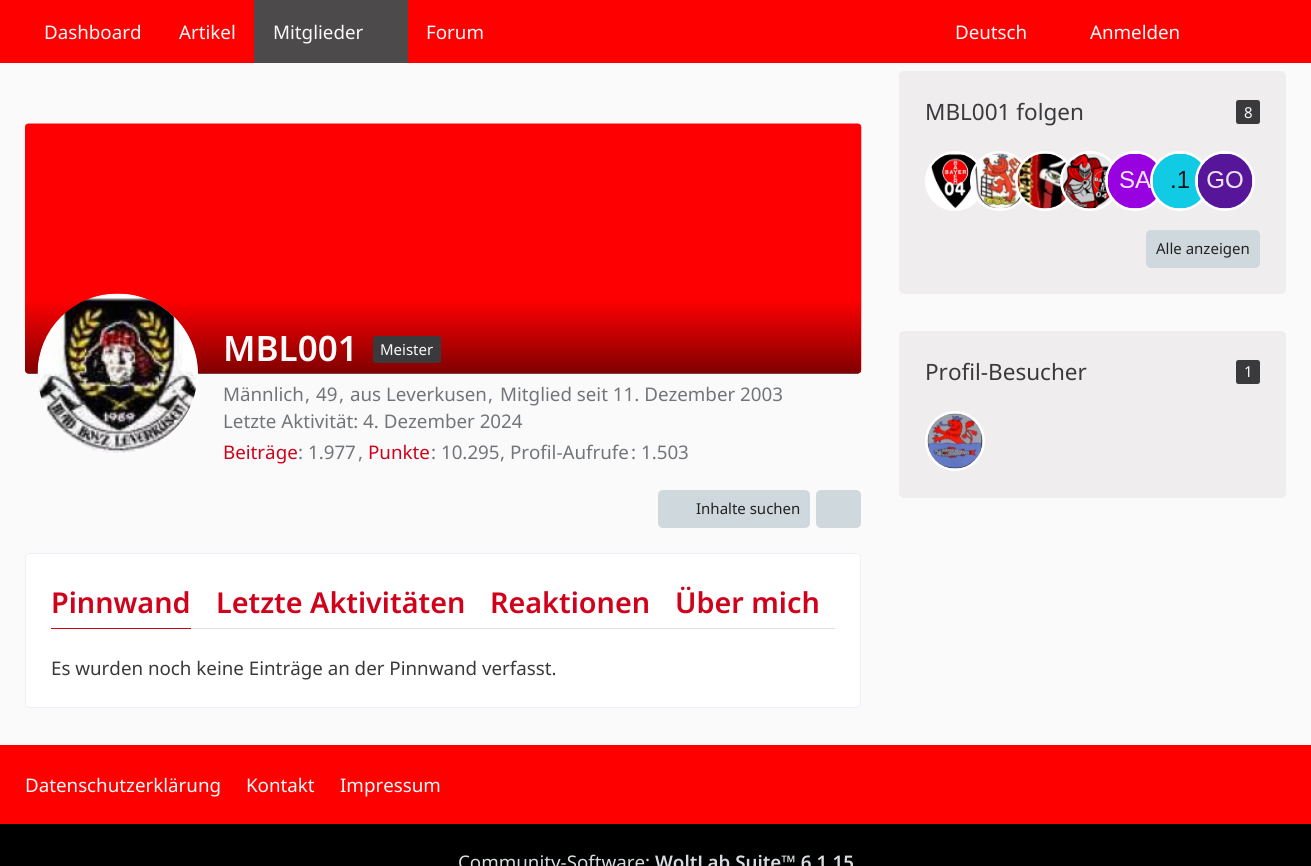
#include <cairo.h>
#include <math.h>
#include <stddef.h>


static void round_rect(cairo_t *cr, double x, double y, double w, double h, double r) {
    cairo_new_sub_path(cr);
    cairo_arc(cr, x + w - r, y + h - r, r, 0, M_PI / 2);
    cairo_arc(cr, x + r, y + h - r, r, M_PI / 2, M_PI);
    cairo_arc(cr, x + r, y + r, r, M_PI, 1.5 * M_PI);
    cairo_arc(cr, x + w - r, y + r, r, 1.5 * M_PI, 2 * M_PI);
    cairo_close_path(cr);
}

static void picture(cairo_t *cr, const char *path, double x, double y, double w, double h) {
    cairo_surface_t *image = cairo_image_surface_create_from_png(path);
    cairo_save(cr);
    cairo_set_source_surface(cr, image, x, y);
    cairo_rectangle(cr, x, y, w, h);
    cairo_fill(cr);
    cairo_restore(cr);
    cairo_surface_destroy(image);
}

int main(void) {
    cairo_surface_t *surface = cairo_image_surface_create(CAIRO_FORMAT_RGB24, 1311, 866);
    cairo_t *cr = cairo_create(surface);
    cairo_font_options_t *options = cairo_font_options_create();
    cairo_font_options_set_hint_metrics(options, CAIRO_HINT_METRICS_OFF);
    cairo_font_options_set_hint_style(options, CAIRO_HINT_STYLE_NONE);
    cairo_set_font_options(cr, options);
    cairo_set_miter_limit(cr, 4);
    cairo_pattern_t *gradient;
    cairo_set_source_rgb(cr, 0.98, 0.98, 0.98);
    cairo_paint(cr);
    cairo_set_source_rgb(cr, 1, 0, 0);
    cairo_rectangle(cr, 0, 0, 1311, 63);
    cairo_fill(cr);
    cairo_select_font_face(cr, "Noto Sans", CAIRO_FONT_SLANT_NORMAL, CAIRO_FONT_WEIGHT_NORMAL);
    cairo_set_font_size(cr, 18.75);
    cairo_set_source_rgb(cr, 0.98, 0.98, 0.98);
    cairo_move_to(cr, 44, 39);
    cairo_show_text(cr, "Dashboard");
    cairo_move_to(cr, 179, 39);
    cairo_show_text(cr, "Artikel");
    cairo_set_source_rgb(cr, 0.298, 0.29, 0.29);
    cairo_rectangle(cr, 254, 0, 154, 63);
    cairo_fill(cr);
    cairo_set_source_rgb(cr, 0.98, 0.98, 0.98);
    cairo_move_to(cr, 273, 39);
    cairo_show_text(cr, "Mitglieder");
    cairo_move_to(cr, 426, 39);
    cairo_show_text(cr, "Forum");
    cairo_move_to(cr, 955, 39);
    cairo_show_text(cr, "Deutsch");
    cairo_move_to(cr, 1090, 39);
    cairo_show_text(cr, "Anmelden");
    cairo_set_source_rgb(cr, 0.937, 0.929, 0.929);
    round_rect(cr, 899, 71, 387, 223, 5);
    cairo_fill(cr);
    cairo_set_font_size(cr, 22.5);
    cairo_set_source_rgb(cr, 0.227, 0.227, 0.239);
    cairo_move_to(cr, 925, 120);
    cairo_show_text(cr, "MBL001 folgen");
    round_rect(cr, 1236, 100, 24, 24, 2.5);
    cairo_fill(cr);
    cairo_set_font_size(cr, 15);
    cairo_set_source_rgb(cr, 0.98, 0.98, 0.98);
    cairo_move_to(cr, 1244, 118);
    cairo_show_text(cr, "8");
    cairo_set_source_rgb(cr, 1, 1, 1);
    cairo_new_path(cr);
    cairo_arc(cr, 955, 181, 28.5, 0, 2 * M_PI);
    cairo_fill_preserve(cr);
    cairo_set_line_width(cr, 3);
    cairo_stroke(cr);
    picture(cr, "img1.png", 931, 154, 47, 54);
    cairo_arc(cr, 1000, 181, 28.5, 0, 2 * M_PI);
    cairo_stroke(cr);
    picture(cr, "img2.png", 973, 153, 50, 56);
    cairo_arc(cr, 1045, 181, 28.5, 0, 2 * M_PI);
    cairo_stroke(cr);
    picture(cr, "img3.png", 1017, 153, 51, 56);
    cairo_arc(cr, 1090, 181, 28.5, 0, 2 * M_PI);
    cairo_stroke(cr);
    picture(cr, "img4.png", 1062, 153, 51, 56);
    cairo_arc(cr, 1135, 181, 28.5, 0, 2 * M_PI);
    cairo_stroke(cr);
    picture(cr, "img5.png", 1108, 154, 50, 55);
    cairo_arc(cr, 1180, 181, 28.5, 0, 2 * M_PI);
    cairo_stroke(cr);
    picture(cr, "img6.png", 1153, 154, 50, 55);
    cairo_arc(cr, 1225, 181, 28.5, 0, 2 * M_PI);
    cairo_stroke(cr);
    picture(cr, "img7.png", 1198, 154, 55, 55);
    cairo_set_source_rgb(cr, 0.812, 0.847, 0.863);
    round_rect(cr, 1146, 230, 114, 38, 5);
    cairo_fill(cr);
    cairo_set_source_rgb(cr, 0.129, 0.129, 0.129);
    cairo_move_to(cr, 1156, 254);
    cairo_show_text(cr, "Alle anzeigen");
    cairo_set_source_rgb(cr, 0.937, 0.929, 0.929);
    round_rect(cr, 899, 331, 387, 167, 5);
    cairo_fill(cr);
    cairo_set_font_size(cr, 22.5);
    cairo_set_source_rgb(cr, 0.227, 0.227, 0.239);
    cairo_move_to(cr, 925, 380);
    cairo_show_text(cr, "Profil-Besucher");
    round_rect(cr, 1236, 360, 24, 24, 2.5);
    cairo_fill(cr);
    cairo_set_font_size(cr, 15);
    cairo_set_source_rgb(cr, 0.98, 0.98, 0.98);
    cairo_move_to(cr, 1244, 377);
    cairo_show_text(cr, "1");
    cairo_new_path(cr);
    cairo_arc(cr, 955, 441, 28.5, 0, 2 * M_PI);
    cairo_set_source_rgb(cr, 1, 1, 1);
    cairo_stroke(cr);
    picture(cr, "img8.png", 927, 413, 56, 56);
    picture(cr, "img9.png", 24, 123, 838, 251);
    gradient = cairo_pattern_create_linear(443, 124, 443, 374);
    cairo_pattern_add_color_stop_rgba(gradient, 0.7, 0, 0, 0, 0);
    cairo_pattern_add_color_stop_rgba(gradient, 1, 0, 0, 0, 0.5);
    cairo_set_source(cr, gradient);
    cairo_pattern_destroy(gradient);
    cairo_new_path(cr);
    cairo_move_to(cr, 25, 124);
    cairo_line_to(cr, 861, 124);
    cairo_line_to(cr, 861, 370);
    cairo_curve_to(cr, 861, 372, 859, 374, 857, 374);
    cairo_line_to(cr, 29, 374);
    cairo_curve_to(cr, 27, 374, 25, 372, 25, 370);
    cairo_close_path(cr);
    cairo_fill(cr);
    cairo_set_source_rgb(cr, 1, 1, 1);
    cairo_arc(cr, 118, 374, 80, 0, 2 * M_PI);
    cairo_fill(cr);
    picture(cr, "img10.png", 37, 293, 161, 161);
    cairo_select_font_face(cr, "Noto Sans SemiBold", CAIRO_FONT_SLANT_NORMAL, CAIRO_FONT_WEIGHT_NORMAL);
    cairo_set_font_size(cr, 35);
    cairo_set_source_rgb(cr, 0.98, 0.98, 0.98);
    cairo_move_to(cr, 223, 361);
    cairo_show_text(cr, "MBL001");
    cairo_set_source_rgb(cr, 0.227, 0.227, 0.239);
    round_rect(cr, 373, 336, 68, 27, 2.5);
    cairo_fill(cr);
    cairo_select_font_face(cr, "Noto Sans", CAIRO_FONT_SLANT_NORMAL, CAIRO_FONT_WEIGHT_NORMAL);
    cairo_set_font_size(cr, 15);
    cairo_set_source_rgb(cr, 0.98, 0.98, 0.98);
    cairo_move_to(cr, 380, 355);
    cairo_show_text(cr, "Meister");
    cairo_set_font_size(cr, 18.75);
    cairo_set_source_rgb(cr, 0.443, 0.459, 0.478);
    cairo_move_to(cr, 223, 401);
    cairo_show_text(cr, "Männlich");
    cairo_move_to(cr, 305, 401);
    cairo_show_text(cr, ",");
    cairo_move_to(cr, 316, 401);
    cairo_show_text(cr, "49");
    cairo_move_to(cr, 339, 401);
    cairo_show_text(cr, ",");
    cairo_move_to(cr, 350, 401);
    cairo_show_text(cr, "aus Leverkusen");
    cairo_move_to(cr, 488, 401);
    cairo_show_text(cr, ",");
    cairo_move_to(cr, 500, 401);
    cairo_show_text(cr, "Mitglied seit 11. Dezember 2003");
    cairo_move_to(cr, 223, 428);
    cairo_show_text(cr, "Letzte Aktivität: 4. Dezember 2024");
    cairo_set_source_rgb(cr, 0.816, 0.008, 0.106);
    cairo_move_to(cr, 223, 459);
    cairo_show_text(cr, "Beiträge");
    cairo_set_source_rgb(cr, 0.443, 0.459, 0.478);
    cairo_move_to(cr, 298, 459);
    cairo_show_text(cr, ": 1.977");
    cairo_move_to(cr, 358, 459);
    cairo_show_text(cr, ",");
    cairo_set_source_rgb(cr, 0.816, 0.008, 0.106);
    cairo_move_to(cr, 368, 459);
    cairo_show_text(cr, "Punkte");
    cairo_set_source_rgb(cr, 0.443, 0.459, 0.478);
    cairo_move_to(cr, 431, 459);
    cairo_show_text(cr, ": 10.295");
    cairo_move_to(cr, 500, 459);
    cairo_show_text(cr, ", Profil-Aufrufe");
    cairo_move_to(cr, 631, 459);
    cairo_show_text(cr, ": 1.503");
    cairo_set_source_rgb(cr, 0.812, 0.847, 0.863);
    round_rect(cr, 658, 490, 152, 38, 5);
    cairo_fill(cr);
    cairo_set_font_size(cr, 15);
    cairo_set_source_rgb(cr, 0.129, 0.129, 0.129);
    cairo_move_to(cr, 696, 514);
    cairo_show_text(cr, "Inhalte suchen");
    cairo_set_source_rgb(cr, 0.812, 0.847, 0.863);
    round_rect(cr, 816, 490, 45, 38, 5);
    cairo_fill(cr);
    cairo_set_source_rgb(cr, 1, 1, 1);
    round_rect(cr, 25.5, 553.5, 835, 154, 4.5);
    cairo_fill_preserve(cr);
    cairo_set_source_rgb(cr, 0.925, 0.945, 0.969);
    cairo_set_line_width(cr, 1);
    cairo_stroke(cr);
    cairo_set_source_rgb(cr, 0.878, 0.878, 0.878);
    cairo_rectangle(cr, 191, 628, 644, 1);
    cairo_fill(cr);
    cairo_select_font_face(cr, "Noto Sans SemiBold", CAIRO_FONT_SLANT_NORMAL, CAIRO_FONT_WEIGHT_NORMAL);
    cairo_set_font_size(cr, 28.75);
    cairo_set_source_rgb(cr, 0.816, 0.008, 0.106);
    cairo_move_to(cr, 51, 613);
    cairo_show_text(cr, "Pinnwand");
    cairo_rectangle(cr, 51, 628, 140, 1);
    cairo_fill(cr);
    cairo_move_to(cr, 216, 613);
    cairo_show_text(cr, "Letzte Aktivitäten");
    cairo_move_to(cr, 490, 613);
    cairo_show_text(cr, "Reaktionen");
    cairo_move_to(cr, 675, 613);
    cairo_show_text(cr, "Über mich");
    cairo_select_font_face(cr, "Noto Sans", CAIRO_FONT_SLANT_NORMAL, CAIRO_FONT_WEIGHT_NORMAL);
    cairo_set_font_size(cr, 18.75);
    cairo_set_source_rgb(cr, 0.227, 0.227, 0.239);
    cairo_move_to(cr, 51, 675);
    cairo_show_text(cr, "Es wurden noch keine Einträge an der Pinnwand verfasst.");
    cairo_set_source_rgb(cr, 1, 0, 0);
    cairo_rectangle(cr, 0, 745, 1311, 79);
    cairo_fill(cr);
    cairo_set_source_rgb(cr, 0.98, 0.98, 0.98);
    cairo_move_to(cr, 25, 792);
    cairo_show_text(cr, "Datenschutzerklärung");
    cairo_move_to(cr, 246, 792);
    cairo_show_text(cr, "Kontakt");
    cairo_move_to(cr, 340, 792);
    cairo_show_text(cr, "Impressum");
    cairo_set_source_rgb(cr, 0, 0, 0);
    cairo_rectangle(cr, 0, 824, 1311, 42);
    cairo_fill(cr);
    cairo_set_source_rgb(cr, 0.851, 0.863, 0.871);
    cairo_move_to(cr, 458, 869);
    cairo_show_text(cr, "Community-Software:");
    cairo_select_font_face(cr, "Noto Sans SemiBold", CAIRO_FONT_SLANT_NORMAL, CAIRO_FONT_WEIGHT_NORMAL);
    cairo_move_to(cr, 655, 869);
    cairo_show_text(cr, "WoltLab Suite™ 6.1.15");
    cairo_surface_write_to_png(surface, "page.png");
    cairo_font_options_destroy(options);
    cairo_destroy(cr);
    cairo_surface_destroy(surface);
    return 0;
}
